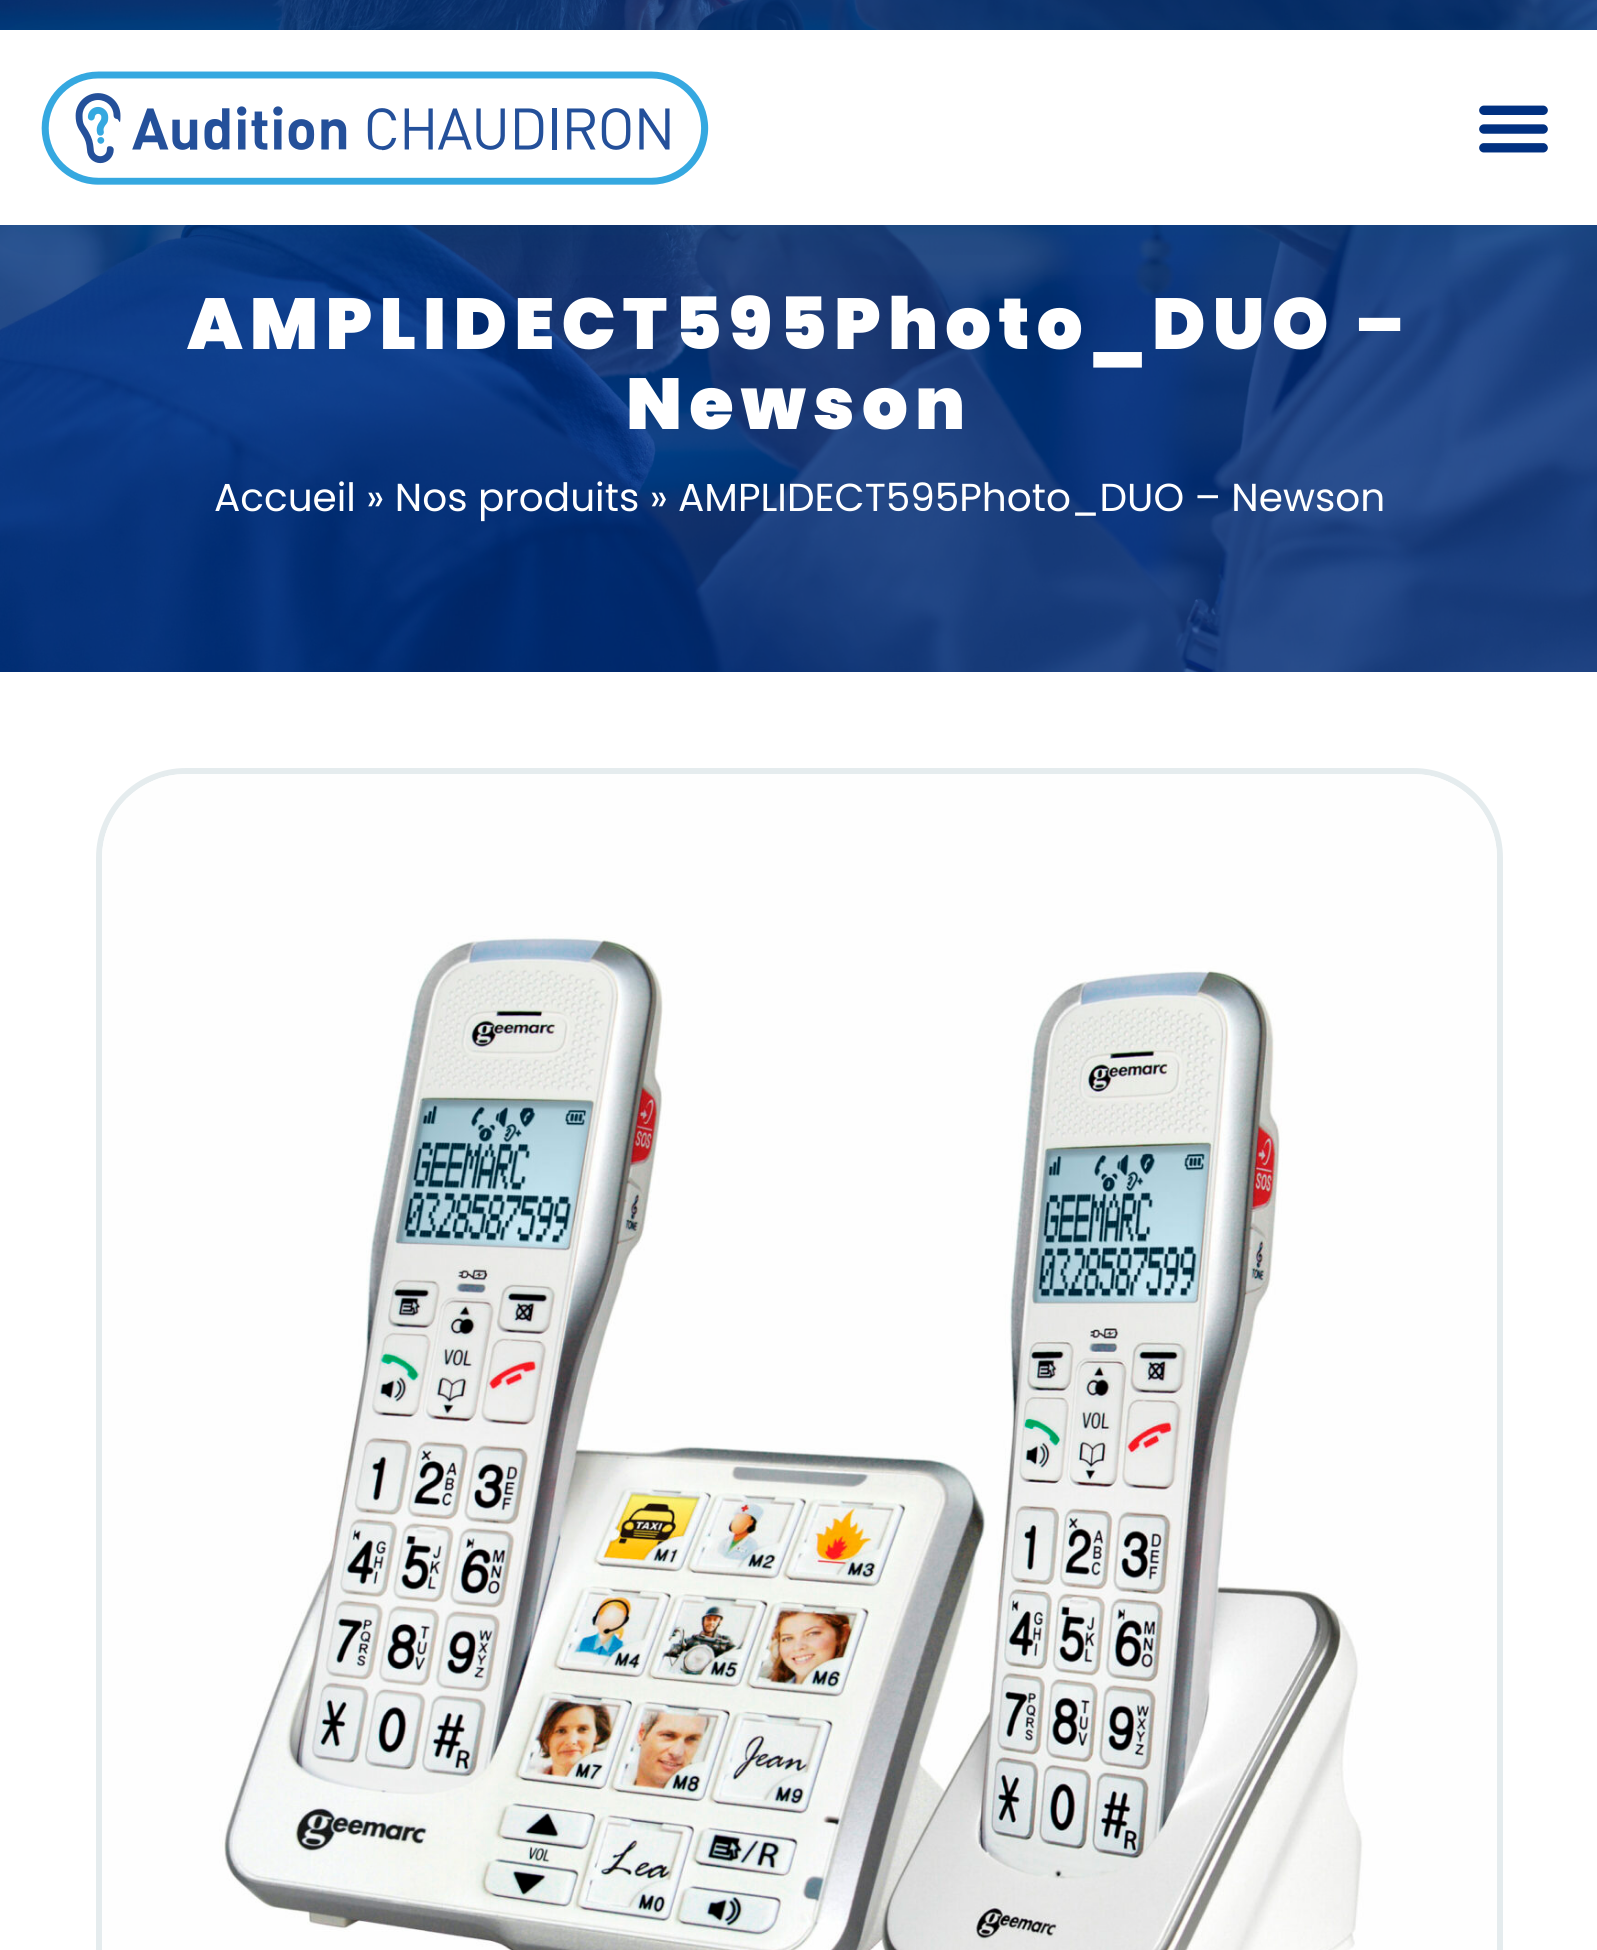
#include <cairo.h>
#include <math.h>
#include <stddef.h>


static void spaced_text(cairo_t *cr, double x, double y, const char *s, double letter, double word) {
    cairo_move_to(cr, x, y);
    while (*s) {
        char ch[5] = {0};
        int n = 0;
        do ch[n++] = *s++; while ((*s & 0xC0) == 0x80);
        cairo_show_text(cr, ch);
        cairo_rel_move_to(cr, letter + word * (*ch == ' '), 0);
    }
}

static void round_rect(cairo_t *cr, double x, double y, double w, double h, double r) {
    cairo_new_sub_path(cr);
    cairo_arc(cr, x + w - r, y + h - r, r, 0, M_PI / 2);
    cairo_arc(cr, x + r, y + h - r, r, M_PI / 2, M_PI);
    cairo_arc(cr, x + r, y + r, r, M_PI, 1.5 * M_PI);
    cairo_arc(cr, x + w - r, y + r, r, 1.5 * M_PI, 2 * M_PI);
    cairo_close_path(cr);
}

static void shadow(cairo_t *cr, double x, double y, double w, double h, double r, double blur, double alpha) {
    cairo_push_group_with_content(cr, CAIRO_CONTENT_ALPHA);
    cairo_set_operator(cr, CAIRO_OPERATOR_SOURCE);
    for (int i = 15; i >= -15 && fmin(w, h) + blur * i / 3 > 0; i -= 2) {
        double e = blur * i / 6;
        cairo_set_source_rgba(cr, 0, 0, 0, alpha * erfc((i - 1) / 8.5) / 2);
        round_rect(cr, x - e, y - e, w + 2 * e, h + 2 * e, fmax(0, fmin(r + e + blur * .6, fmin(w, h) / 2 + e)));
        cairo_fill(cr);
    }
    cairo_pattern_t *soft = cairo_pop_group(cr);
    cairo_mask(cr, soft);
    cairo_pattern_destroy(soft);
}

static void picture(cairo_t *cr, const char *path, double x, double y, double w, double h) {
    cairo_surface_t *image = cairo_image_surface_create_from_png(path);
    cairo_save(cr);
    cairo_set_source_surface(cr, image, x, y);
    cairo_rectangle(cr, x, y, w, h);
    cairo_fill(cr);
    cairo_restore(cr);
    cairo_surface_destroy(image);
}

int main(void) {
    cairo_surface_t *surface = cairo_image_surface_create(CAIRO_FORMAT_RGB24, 1597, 1950);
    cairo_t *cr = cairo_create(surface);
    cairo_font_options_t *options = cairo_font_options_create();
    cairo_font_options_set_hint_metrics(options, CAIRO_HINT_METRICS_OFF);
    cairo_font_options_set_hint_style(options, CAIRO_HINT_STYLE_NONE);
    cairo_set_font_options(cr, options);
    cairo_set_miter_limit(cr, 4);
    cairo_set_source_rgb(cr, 1, 1, 1);
    cairo_paint(cr);
    picture(cr, "img3.png", 0, 0, 1597, 672);
    cairo_set_source_rgb(cr, 0.031, 0.31, 0.478);
    shadow(cr, 0, 30, 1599, 195, 0, 60, 0.35);
    cairo_set_source_rgb(cr, 1, 1, 1);
    cairo_rectangle(cr, 0, 30, 1597, 195);
    cairo_fill(cr);
    picture(cr, "img1.png", 41, 71, 668, 114);
    picture(cr, "img2.png", 1479, 105, 69, 48);
    cairo_select_font_face(cr, "Poppins Black", CAIRO_FONT_SLANT_NORMAL, CAIRO_FONT_WEIGHT_NORMAL);
    cairo_set_font_size(cr, 72);
    spaced_text(cr, 187, 349, "AMPLIDECT595Photo_DUO –", 7.2, 0);
    spaced_text(cr, 626, 429, "Newson", 7.2, 0);
    cairo_select_font_face(cr, "Poppins", CAIRO_FONT_SLANT_NORMAL, CAIRO_FONT_WEIGHT_NORMAL);
    cairo_set_font_size(cr, 39);
    cairo_move_to(cr, 214, 511);
    cairo_show_text(cr, "Accueil » Nos produits » AMPLIDECT595Photo_DUO – Newson");
    round_rect(cr, 99, 771, 1401, 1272, 87);
    cairo_set_source_rgb(cr, 0.898, 0.922, 0.933);
    cairo_set_line_width(cr, 6);
    cairo_stroke(cr);
    picture(cr, "img4.png", 102, 774, 1395, 1176);
    cairo_surface_write_to_png(surface, "page.png");
    cairo_font_options_destroy(options);
    cairo_destroy(cr);
    cairo_surface_destroy(surface);
    return 0;
}
